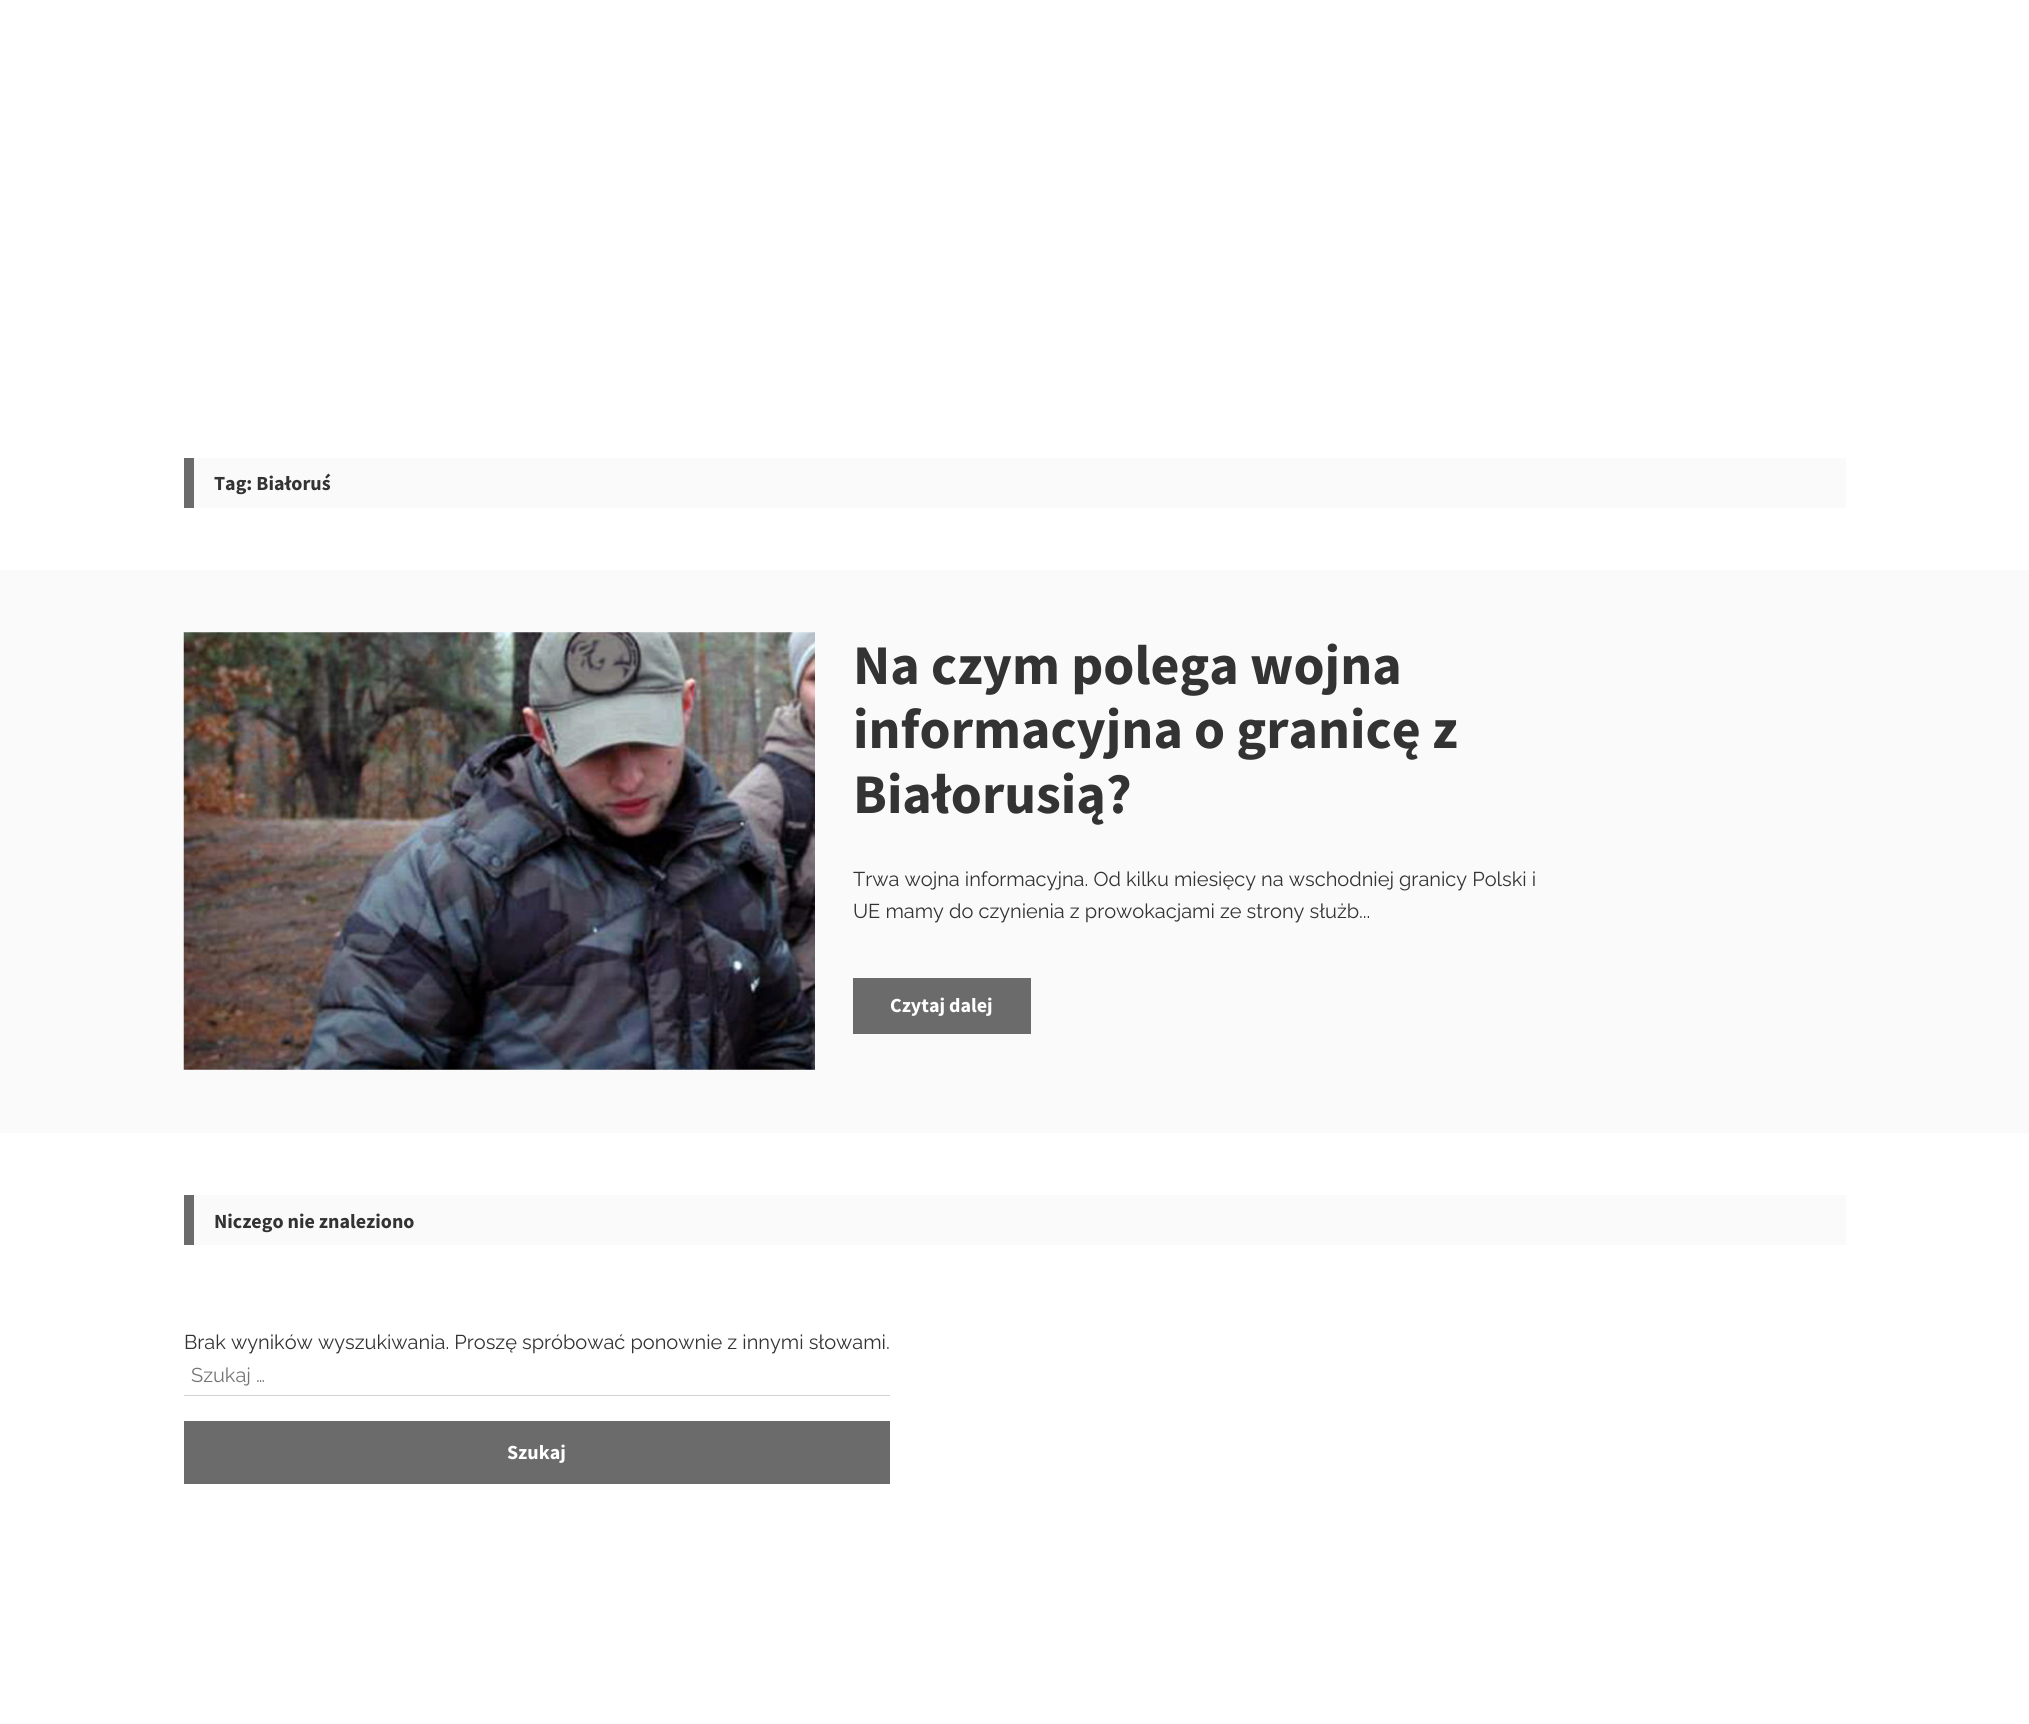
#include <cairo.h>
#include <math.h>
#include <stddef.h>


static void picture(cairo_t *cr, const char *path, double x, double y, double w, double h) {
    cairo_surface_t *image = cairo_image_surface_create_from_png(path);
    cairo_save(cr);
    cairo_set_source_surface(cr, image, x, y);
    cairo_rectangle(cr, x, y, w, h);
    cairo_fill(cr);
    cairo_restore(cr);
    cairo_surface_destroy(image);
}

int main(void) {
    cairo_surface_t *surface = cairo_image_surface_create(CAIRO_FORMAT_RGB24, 2029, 1724);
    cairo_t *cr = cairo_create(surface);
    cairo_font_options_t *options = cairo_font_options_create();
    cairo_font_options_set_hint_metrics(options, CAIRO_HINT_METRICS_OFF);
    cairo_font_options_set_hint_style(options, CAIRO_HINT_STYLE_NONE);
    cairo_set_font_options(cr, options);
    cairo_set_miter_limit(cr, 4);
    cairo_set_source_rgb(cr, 1, 1, 1);
    cairo_paint(cr);
    cairo_set_source_rgb(cr, 0.98, 0.98, 0.98);
    cairo_rectangle(cr, 194, 458, 1652, 50);
    cairo_fill(cr);
    cairo_set_source_rgb(cr, 0.42, 0.42, 0.42);
    cairo_rectangle(cr, 184, 458, 10, 50);
    cairo_fill(cr);
    cairo_select_font_face(cr, "Source Sans Pro", CAIRO_FONT_SLANT_NORMAL, CAIRO_FONT_WEIGHT_BOLD);
    cairo_set_font_size(cr, 20);
    cairo_set_source_rgb(cr, 0.2, 0.2, 0.2);
    cairo_move_to(cr, 214, 490);
    cairo_show_text(cr, "Tag: Białoruś");
    cairo_set_source_rgb(cr, 0.98, 0.98, 0.98);
    cairo_rectangle(cr, 0, 570, 2029, 563);
    cairo_fill(cr);
    picture(cr, "img1.png", 183, 632, 632, 438);
    cairo_set_font_size(cr, 56);
    cairo_set_source_rgb(cr, 0.2, 0.2, 0.2);
    cairo_move_to(cr, 853, 684);
    cairo_show_text(cr, "Na czym polega wojna");
    cairo_move_to(cr, 853, 748);
    cairo_show_text(cr, "informacyjna o granicę z");
    cairo_move_to(cr, 853, 813);
    cairo_show_text(cr, "Białorusią?");
    cairo_select_font_face(cr, "Raleway Thin", CAIRO_FONT_SLANT_NORMAL, CAIRO_FONT_WEIGHT_NORMAL);
    cairo_set_font_size(cr, 20);
    cairo_move_to(cr, 853, 886);
    cairo_show_text(cr, "Trwa wojna informacyjna. Od kilku miesięcy na wschodniej granicy Polski i");
    cairo_move_to(cr, 853, 918);
    cairo_show_text(cr, "UE mamy do czynienia z prowokacjami ze strony służb...");
    cairo_set_source_rgb(cr, 0.42, 0.42, 0.42);
    cairo_rectangle(cr, 853, 978, 178, 56);
    cairo_fill(cr);
    cairo_select_font_face(cr, "Source Sans Pro", CAIRO_FONT_SLANT_NORMAL, CAIRO_FONT_WEIGHT_BOLD);
    cairo_set_source_rgb(cr, 1, 1, 1);
    cairo_move_to(cr, 890, 1012);
    cairo_show_text(cr, "Czytaj dalej");
    cairo_set_source_rgb(cr, 0.98, 0.98, 0.98);
    cairo_rectangle(cr, 194, 1195, 1652, 50);
    cairo_fill(cr);
    cairo_set_source_rgb(cr, 0.42, 0.42, 0.42);
    cairo_rectangle(cr, 184, 1195, 10, 50);
    cairo_fill(cr);
    cairo_set_source_rgb(cr, 0.2, 0.2, 0.2);
    cairo_move_to(cr, 214, 1228);
    cairo_show_text(cr, "Niczego nie znaleziono");
    cairo_select_font_face(cr, "Raleway Thin", CAIRO_FONT_SLANT_NORMAL, CAIRO_FONT_WEIGHT_NORMAL);
    cairo_move_to(cr, 184, 1349);
    cairo_show_text(cr, "Brak wyników wyszukiwania. Proszę spróbować ponownie z innymi słowami.");
    cairo_set_source_rgb(cr, 0.827, 0.827, 0.827);
    cairo_rectangle(cr, 184, 1395, 706, 1);
    cairo_fill(cr);
    cairo_set_source_rgb(cr, 0.459, 0.459, 0.459);
    cairo_move_to(cr, 191, 1382);
    cairo_show_text(cr, "Szukaj …");
    cairo_set_source_rgb(cr, 0.42, 0.42, 0.42);
    cairo_rectangle(cr, 184, 1421, 706, 63);
    cairo_fill(cr);
    cairo_select_font_face(cr, "Source Sans Pro", CAIRO_FONT_SLANT_NORMAL, CAIRO_FONT_WEIGHT_BOLD);
    cairo_set_source_rgb(cr, 1, 1, 1);
    cairo_move_to(cr, 507, 1459);
    cairo_show_text(cr, "Szukaj");
    cairo_surface_write_to_png(surface, "page.png");
    cairo_font_options_destroy(options);
    cairo_destroy(cr);
    cairo_surface_destroy(surface);
    return 0;
}
